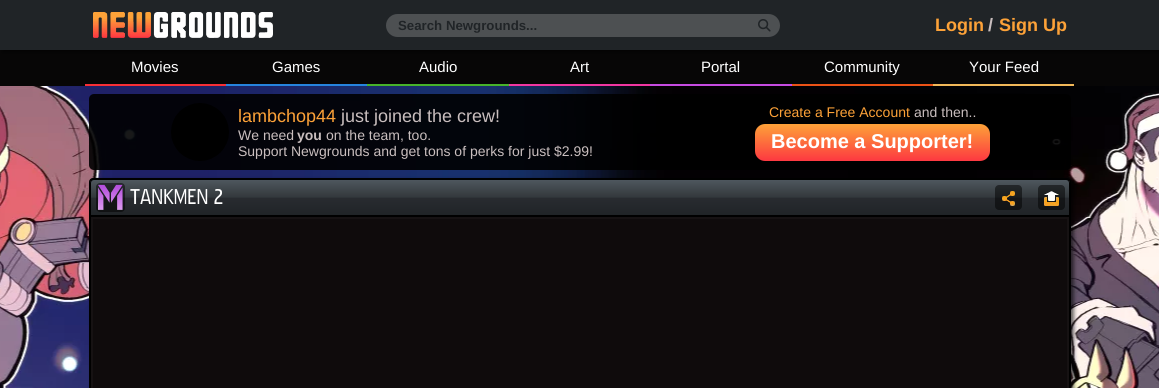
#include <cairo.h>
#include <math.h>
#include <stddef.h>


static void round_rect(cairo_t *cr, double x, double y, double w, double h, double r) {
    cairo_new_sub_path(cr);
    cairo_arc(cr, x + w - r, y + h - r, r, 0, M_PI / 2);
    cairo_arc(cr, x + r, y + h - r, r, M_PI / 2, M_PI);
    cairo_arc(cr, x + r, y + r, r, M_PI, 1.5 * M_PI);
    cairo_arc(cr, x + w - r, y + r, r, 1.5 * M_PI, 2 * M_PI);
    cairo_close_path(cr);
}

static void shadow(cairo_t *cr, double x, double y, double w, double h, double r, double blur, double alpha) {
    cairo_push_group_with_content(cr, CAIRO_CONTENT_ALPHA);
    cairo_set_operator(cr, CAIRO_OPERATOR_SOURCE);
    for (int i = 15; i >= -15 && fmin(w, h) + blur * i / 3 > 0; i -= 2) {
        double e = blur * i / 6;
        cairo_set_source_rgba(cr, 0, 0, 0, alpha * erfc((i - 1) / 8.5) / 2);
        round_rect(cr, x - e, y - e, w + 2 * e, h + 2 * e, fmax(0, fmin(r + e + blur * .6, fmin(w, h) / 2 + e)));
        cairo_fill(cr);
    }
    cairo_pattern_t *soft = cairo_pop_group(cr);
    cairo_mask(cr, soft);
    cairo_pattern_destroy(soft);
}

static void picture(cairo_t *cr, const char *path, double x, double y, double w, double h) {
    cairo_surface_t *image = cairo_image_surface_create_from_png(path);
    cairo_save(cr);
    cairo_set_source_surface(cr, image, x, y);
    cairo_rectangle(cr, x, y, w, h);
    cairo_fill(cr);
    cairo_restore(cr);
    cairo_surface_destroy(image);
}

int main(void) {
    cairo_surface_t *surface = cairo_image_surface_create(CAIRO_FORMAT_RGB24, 1159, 388);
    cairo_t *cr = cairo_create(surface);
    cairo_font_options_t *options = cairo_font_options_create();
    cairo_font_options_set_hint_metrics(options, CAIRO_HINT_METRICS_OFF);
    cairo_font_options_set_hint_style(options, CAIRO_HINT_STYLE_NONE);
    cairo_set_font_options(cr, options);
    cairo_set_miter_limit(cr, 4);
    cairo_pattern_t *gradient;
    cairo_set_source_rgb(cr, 1, 1, 1);
    cairo_paint(cr);
    cairo_set_source_rgb(cr, 0.031, 0.024, 0.024);
    cairo_rectangle(cr, 0, 50, 1159, 36);
    cairo_fill(cr);
    cairo_set_source_rgb(cr, 0, 0, 0);
    shadow(cr, 3, 2, 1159, 50, 0, 2, 0.6);
    cairo_set_source_rgb(cr, 0.125, 0.141, 0.153);
    cairo_rectangle(cr, 0, 0, 1159, 50);
    cairo_fill(cr);
    picture(cr, "img1.png", 93, 12, 180, 26);
    cairo_set_source_rgb(cr, 0.302, 0.314, 0.322);
    round_rect(cr, 386, 14, 394, 23, 11.5);
    cairo_fill(cr);
    cairo_select_font_face(cr, "Liberation Sans", CAIRO_FONT_SLANT_NORMAL, CAIRO_FONT_WEIGHT_BOLD);
    cairo_set_font_size(cr, 13.25);
    cairo_set_source_rgb(cr, 0.125, 0.141, 0.153);
    cairo_move_to(cr, 398, 30);
    cairo_show_text(cr, "Search Newgrounds...");
    picture(cr, "img2.png", 758, 19, 13, 13);
    cairo_set_font_size(cr, 18);
    cairo_set_source_rgb(cr, 0.992, 0.635, 0.22);
    cairo_move_to(cr, 935, 31);
    cairo_show_text(cr, "Login");
    cairo_set_source_rgb(cr, 0.788, 0.745, 0.745);
    cairo_move_to(cr, 988, 31);
    cairo_show_text(cr, "/");
    cairo_set_source_rgb(cr, 0.992, 0.635, 0.22);
    cairo_move_to(cr, 999, 31);
    cairo_show_text(cr, "Sign Up");
    cairo_set_source_rgb(cr, 0.965, 0.184, 0.212);
    cairo_rectangle(cr, 85, 84, 141, 2);
    cairo_fill(cr);
    cairo_select_font_face(cr, "Liberation Sans", CAIRO_FONT_SLANT_NORMAL, CAIRO_FONT_WEIGHT_NORMAL);
    cairo_set_font_size(cr, 15);
    cairo_set_source_rgb(cr, 1, 1, 1);
    cairo_move_to(cr, 131, 72);
    cairo_show_text(cr, "Movies");
    cairo_set_source_rgb(cr, 0.149, 0.518, 0.871);
    cairo_rectangle(cr, 226, 84, 141, 2);
    cairo_fill(cr);
    cairo_set_source_rgb(cr, 1, 1, 1);
    cairo_move_to(cr, 272, 72);
    cairo_show_text(cr, "Games");
    cairo_set_source_rgb(cr, 0.278, 0.702, 0.165);
    cairo_rectangle(cr, 367, 84, 142, 2);
    cairo_fill(cr);
    cairo_set_source_rgb(cr, 1, 1, 1);
    cairo_move_to(cr, 419, 72);
    cairo_show_text(cr, "Audio");
    cairo_set_source_rgb(cr, 0.945, 0.212, 0.631);
    cairo_rectangle(cr, 509, 84, 141, 2);
    cairo_fill(cr);
    cairo_set_source_rgb(cr, 1, 1, 1);
    cairo_move_to(cr, 570, 72);
    cairo_show_text(cr, "Art");
    cairo_set_source_rgb(cr, 0.776, 0.294, 0.886);
    cairo_rectangle(cr, 650, 84, 142, 2);
    cairo_fill(cr);
    cairo_set_source_rgb(cr, 1, 1, 1);
    cairo_move_to(cr, 701, 72);
    cairo_show_text(cr, "Portal");
    cairo_set_source_rgb(cr, 0.925, 0.322, 0.086);
    cairo_rectangle(cr, 792, 84, 141, 2);
    cairo_fill(cr);
    cairo_set_source_rgb(cr, 1, 1, 1);
    cairo_move_to(cr, 824, 72);
    cairo_show_text(cr, "Community");
    cairo_set_source_rgb(cr, 0.945, 0.722, 0.349);
    cairo_rectangle(cr, 933, 84, 141, 2);
    cairo_fill(cr);
    cairo_set_source_rgb(cr, 1, 1, 1);
    cairo_move_to(cr, 969, 72);
    cairo_show_text(cr, "Your Feed");
    picture(cr, "img3.png", 0, 86, 1159, 302);
    cairo_set_source_rgba(cr, 0, 0, 0, 0.9);
    round_rect(cr, 89, 94, 982, 76, 5);
    cairo_fill(cr);
    picture(cr, "img4.png", 171, 103, 58, 58);
    cairo_set_font_size(cr, 18);
    cairo_set_source_rgb(cr, 0.992, 0.635, 0.22);
    cairo_move_to(cr, 238, 122);
    cairo_show_text(cr, "lambchop44");
    cairo_set_source_rgb(cr, 0.788, 0.745, 0.745);
    cairo_move_to(cr, 341, 122);
    cairo_show_text(cr, "just joined the crew!");
    cairo_set_font_size(cr, 14);
    cairo_move_to(cr, 238, 140);
    cairo_show_text(cr, "We need");
    cairo_select_font_face(cr, "Liberation Sans", CAIRO_FONT_SLANT_NORMAL, CAIRO_FONT_WEIGHT_BOLD);
    cairo_move_to(cr, 297, 140);
    cairo_show_text(cr, "you");
    cairo_select_font_face(cr, "Liberation Sans", CAIRO_FONT_SLANT_NORMAL, CAIRO_FONT_WEIGHT_NORMAL);
    cairo_move_to(cr, 326, 140);
    cairo_show_text(cr, "on the team, too.");
    cairo_move_to(cr, 238, 156);
    cairo_show_text(cr, "Support Newgrounds and get tons of perks for just $2.99!");
    cairo_set_source_rgb(cr, 0.992, 0.635, 0.22);
    cairo_move_to(cr, 769, 117);
    cairo_show_text(cr, "Create a Free Account");
    cairo_set_source_rgb(cr, 0.788, 0.745, 0.745);
    cairo_move_to(cr, 914, 117);
    cairo_show_text(cr, "and then..");
    gradient = cairo_pattern_create_linear(873, 124, 873, 161);
    cairo_pattern_add_color_stop_rgba(gradient, 0, 0.992, 0.635, 0.22, 1);
    cairo_pattern_add_color_stop_rgba(gradient, 1, 0.992, 0.22, 0.255, 1);
    cairo_set_source(cr, gradient);
    cairo_pattern_destroy(gradient);
    round_rect(cr, 755, 124, 235, 37, 10);
    cairo_fill(cr);
    cairo_select_font_face(cr, "Liberation Sans", CAIRO_FONT_SLANT_NORMAL, CAIRO_FONT_WEIGHT_BOLD);
    cairo_set_font_size(cr, 20);
    cairo_set_source_rgb(cr, 1, 1, 1);
    cairo_move_to(cr, 771, 148);
    cairo_show_text(cr, "Become a Supporter!");
    cairo_set_source_rgb(cr, 0, 0, 0);
    shadow(cr, 92, 180, 982, 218, 4, 2, 0.6);
    cairo_set_source_rgb(cr, 0, 0, 0);
    round_rect(cr, 89.5, 178.5, 981, 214, 3.5);
    cairo_fill_preserve(cr);
    cairo_set_line_width(cr, 1);
    cairo_stroke(cr);
    cairo_save(cr);
    cairo_new_path(cr);
    cairo_move_to(cr, 94, 179);
    cairo_line_to(cr, 1066, 179);
    cairo_curve_to(cr, 1068, 179, 1070, 181, 1070, 183);
    cairo_line_to(cr, 1070, 216);
    cairo_line_to(cr, 90, 216);
    cairo_line_to(cr, 90, 183);
    cairo_curve_to(cr, 90, 181, 92, 179, 94, 179);
    cairo_close_path(cr);
    cairo_clip(cr);
    gradient = cairo_pattern_create_linear(580, 180, 580, 215);
    cairo_pattern_add_color_stop_rgba(gradient, 0, 0.306, 0.341, 0.369, 1);
    cairo_pattern_add_color_stop_rgba(gradient, 0.48, 0.204, 0.224, 0.239, 1);
    cairo_pattern_add_color_stop_rgba(gradient, 0.53, 0.157, 0.169, 0.188, 1);
    cairo_pattern_add_color_stop_rgba(gradient, 1, 0.125, 0.141, 0.153, 1);
    cairo_set_source(cr, gradient);
    cairo_pattern_destroy(gradient);
    cairo_rectangle(cr, 90, 180, 980, 35);
    cairo_fill(cr);
    cairo_restore(cr);
    cairo_new_path(cr);
    cairo_move_to(cr, 94, 179.5);
    cairo_line_to(cr, 1066, 179.5);
    cairo_curve_to(cr, 1068, 179.5, 1069.5, 181, 1069.5, 183);
    cairo_line_to(cr, 1069.5, 215.5);
    cairo_line_to(cr, 90.5, 215.5);
    cairo_line_to(cr, 90.5, 183);
    cairo_curve_to(cr, 90.5, 181, 92, 179.5, 94, 179.5);
    cairo_close_path(cr);
    cairo_stroke(cr);
    cairo_set_source_rgba(cr, 0, 0, 0, 0.5);
    round_rect(cr, 96, 183, 29, 29, 4);
    cairo_fill(cr);
    picture(cr, "img5.png", 98, 184, 25, 26);
    cairo_select_font_face(cr, "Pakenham", CAIRO_FONT_SLANT_NORMAL, CAIRO_FONT_WEIGHT_NORMAL);
    cairo_set_font_size(cr, 22);
    cairo_set_source_rgb(cr, 1, 1, 1);
    cairo_move_to(cr, 130, 204);
    cairo_show_text(cr, "TANKMEN 2");
    cairo_set_source_rgba(cr, 0, 0, 0, 0.5);
    round_rect(cr, 995, 185, 27, 25, 4);
    cairo_fill(cr);
    picture(cr, "img6.png", 1002, 191, 13, 15);
    round_rect(cr, 1038, 185, 27, 25, 4);
    cairo_fill(cr);
    picture(cr, "img7.png", 1044, 191, 15, 15);
    cairo_set_source_rgb(cr, 0.059, 0.043, 0.047);
    cairo_rectangle(cr, 92, 218, 976, 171);
    cairo_fill_preserve(cr);
    cairo_set_source_rgb(cr, 0.086, 0.071, 0.075);
    cairo_set_line_width(cr, 2);
    cairo_stroke(cr);
    cairo_surface_write_to_png(surface, "page.png");
    cairo_font_options_destroy(options);
    cairo_destroy(cr);
    cairo_surface_destroy(surface);
    return 0;
}
